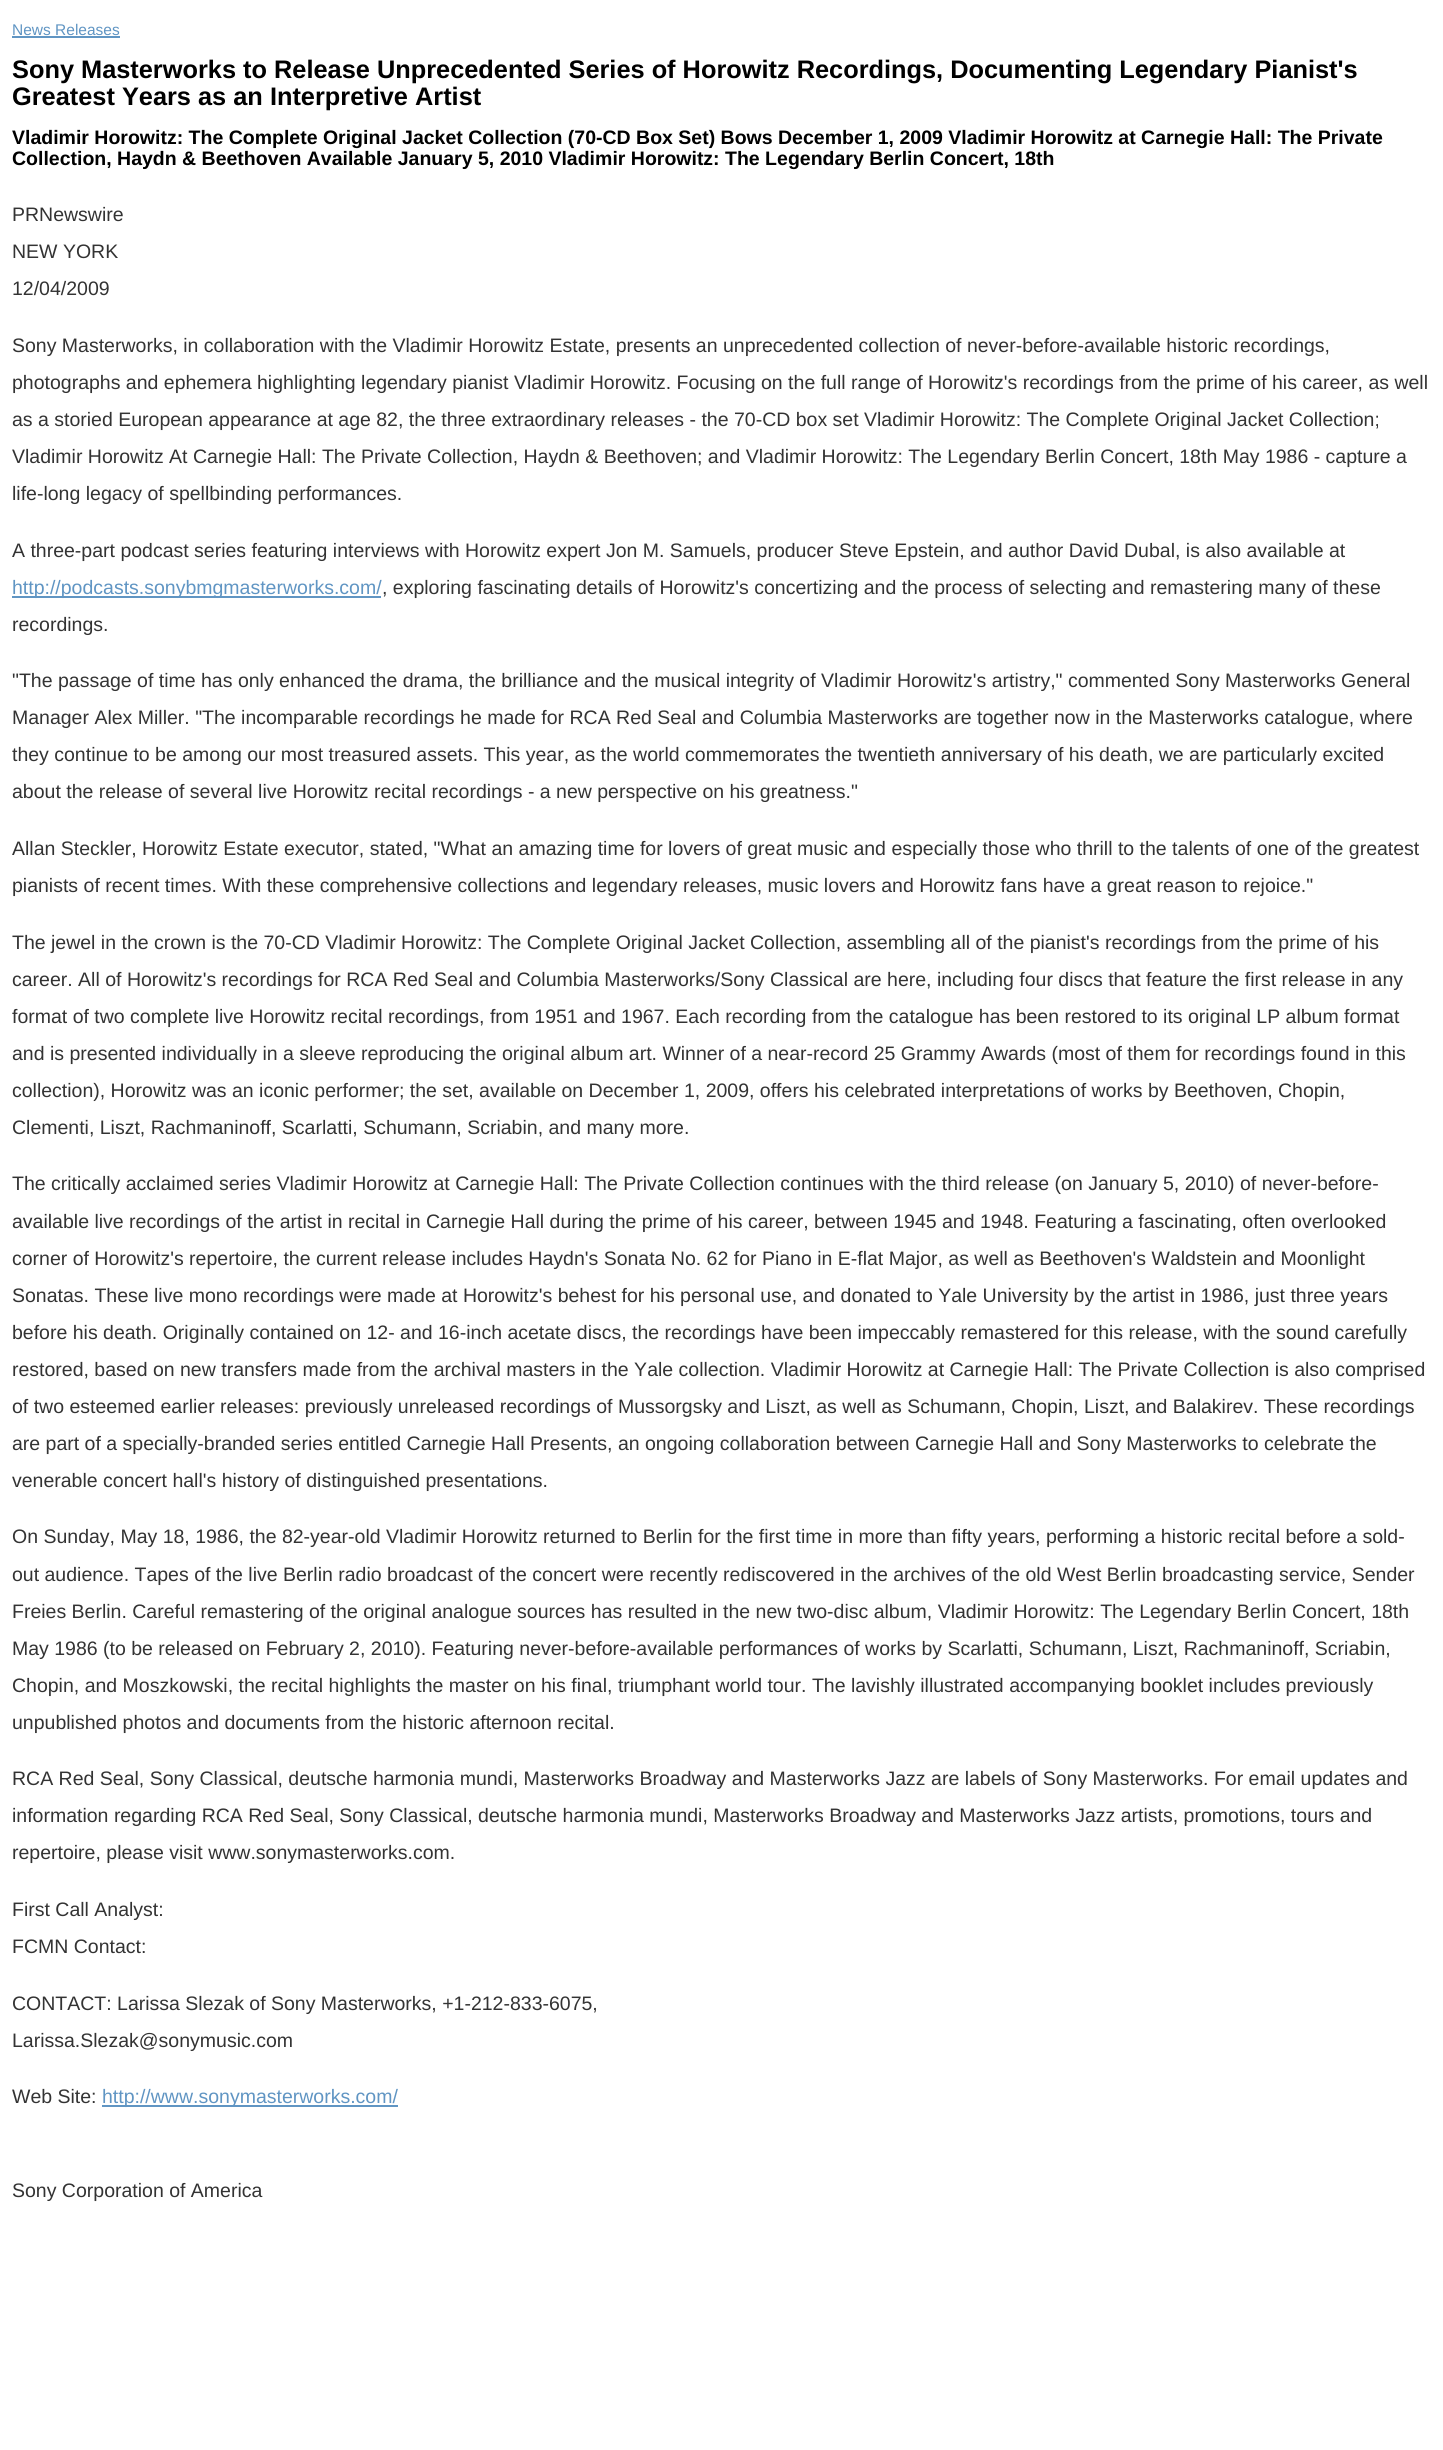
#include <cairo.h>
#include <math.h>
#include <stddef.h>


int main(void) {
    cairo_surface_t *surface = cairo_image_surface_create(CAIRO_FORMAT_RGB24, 1443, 2450);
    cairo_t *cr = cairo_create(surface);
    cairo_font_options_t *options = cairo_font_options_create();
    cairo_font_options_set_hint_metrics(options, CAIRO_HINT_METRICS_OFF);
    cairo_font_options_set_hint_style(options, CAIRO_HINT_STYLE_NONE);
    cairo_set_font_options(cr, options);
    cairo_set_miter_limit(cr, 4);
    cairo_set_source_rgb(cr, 1, 1, 1);
    cairo_paint(cr);
    cairo_select_font_face(cr, "Liberation Sans", CAIRO_FONT_SLANT_NORMAL, CAIRO_FONT_WEIGHT_NORMAL);
    cairo_set_font_size(cr, 15.5);
    cairo_set_source_rgb(cr, 0.376, 0.584, 0.765);
    cairo_move_to(cr, 12, 35);
    cairo_show_text(cr, "News Releases");
    cairo_rectangle(cr, 12, 36, 108, 2);
    cairo_fill(cr);
    cairo_select_font_face(cr, "Liberation Sans", CAIRO_FONT_SLANT_NORMAL, CAIRO_FONT_WEIGHT_BOLD);
    cairo_set_font_size(cr, 25.35);
    cairo_set_source_rgb(cr, 0, 0, 0);
    cairo_move_to(cr, 12, 78);
    cairo_show_text(cr, "Sony Masterworks to Release Unprecedented Series of Horowitz Recordings, Documenting Legendary Pianist's");
    cairo_move_to(cr, 12, 105);
    cairo_show_text(cr, "Greatest Years as an Interpretive Artist");
    cairo_set_font_size(cr, 19.5);
    cairo_move_to(cr, 12, 144);
    cairo_show_text(cr, "Vladimir Horowitz: The Complete Original Jacket Collection (70-CD Box Set) Bows December 1, 2009 Vladimir Horowitz at Carnegie Hall: The Private");
    cairo_move_to(cr, 12, 165);
    cairo_show_text(cr, "Collection, Haydn & Beethoven Available January 5, 2010 Vladimir Horowitz: The Legendary Berlin Concert, 18th");
    cairo_select_font_face(cr, "Liberation Sans", CAIRO_FONT_SLANT_NORMAL, CAIRO_FONT_WEIGHT_NORMAL);
    cairo_set_source_rgb(cr, 0.2, 0.2, 0.2);
    cairo_move_to(cr, 12, 221);
    cairo_show_text(cr, "PRNewswire");
    cairo_move_to(cr, 12, 258);
    cairo_show_text(cr, "NEW YORK");
    cairo_move_to(cr, 12, 295);
    cairo_show_text(cr, "12/04/2009");
    cairo_move_to(cr, 12, 352);
    cairo_show_text(cr, "Sony Masterworks, in collaboration with the Vladimir Horowitz Estate, presents an unprecedented collection of never-before-available historic recordings,");
    cairo_move_to(cr, 12, 389);
    cairo_show_text(cr, "photographs and ephemera highlighting legendary pianist Vladimir Horowitz. Focusing on the full range of Horowitz's recordings from the prime of his career, as well");
    cairo_move_to(cr, 12, 426);
    cairo_show_text(cr, "as a storied European appearance at age 82, the three extraordinary releases - the 70-CD box set Vladimir Horowitz: The Complete Original Jacket Collection;");
    cairo_move_to(cr, 12, 463);
    cairo_show_text(cr, "Vladimir Horowitz At Carnegie Hall: The Private Collection, Haydn & Beethoven; and Vladimir Horowitz: The Legendary Berlin Concert, 18th May 1986 - capture a");
    cairo_move_to(cr, 12, 500);
    cairo_show_text(cr, "life-long legacy of spellbinding performances.");
    cairo_move_to(cr, 12, 557);
    cairo_show_text(cr, "A three-part podcast series featuring interviews with Horowitz expert Jon M. Samuels, producer Steve Epstein, and author David Dubal, is also available at");
    cairo_set_source_rgb(cr, 0.376, 0.584, 0.765);
    cairo_rectangle(cr, 12, 596, 369, 2);
    cairo_fill(cr);
    cairo_move_to(cr, 12, 594);
    cairo_show_text(cr, "http://podcasts.sonybmgmasterworks.com/");
    cairo_set_source_rgb(cr, 0.2, 0.2, 0.2);
    cairo_move_to(cr, 382, 594);
    cairo_show_text(cr, ", exploring fascinating details of Horowitz's concertizing and the process of selecting and remastering many of these");
    cairo_move_to(cr, 12, 631);
    cairo_show_text(cr, "recordings.");
    cairo_move_to(cr, 12, 687);
    cairo_show_text(cr, "\"The passage of time has only enhanced the drama, the brilliance and the musical integrity of Vladimir Horowitz's artistry,\" commented Sony Masterworks General");
    cairo_move_to(cr, 12, 724);
    cairo_show_text(cr, "Manager Alex Miller. \"The incomparable recordings he made for RCA Red Seal and Columbia Masterworks are together now in the Masterworks catalogue, where");
    cairo_move_to(cr, 12, 761);
    cairo_show_text(cr, "they continue to be among our most treasured assets. This year, as the world commemorates the twentieth anniversary of his death, we are particularly excited");
    cairo_move_to(cr, 12, 798);
    cairo_show_text(cr, "about the release of several live Horowitz recital recordings - a new perspective on his greatness.\"");
    cairo_move_to(cr, 12, 855);
    cairo_show_text(cr, "Allan Steckler, Horowitz Estate executor, stated, \"What an amazing time for lovers of great music and especially those who thrill to the talents of one of the greatest");
    cairo_move_to(cr, 12, 892);
    cairo_show_text(cr, "pianists of recent times. With these comprehensive collections and legendary releases, music lovers and Horowitz fans have a great reason to rejoice.\"");
    cairo_move_to(cr, 12, 949);
    cairo_show_text(cr, "The jewel in the crown is the 70-CD Vladimir Horowitz: The Complete Original Jacket Collection, assembling all of the pianist's recordings from the prime of his");
    cairo_move_to(cr, 12, 986);
    cairo_show_text(cr, "career. All of Horowitz's recordings for RCA Red Seal and Columbia Masterworks/Sony Classical are here, including four discs that feature the first release in any");
    cairo_move_to(cr, 12, 1023);
    cairo_show_text(cr, "format of two complete live Horowitz recital recordings, from 1951 and 1967. Each recording from the catalogue has been restored to its original LP album format");
    cairo_move_to(cr, 12, 1060);
    cairo_show_text(cr, "and is presented individually in a sleeve reproducing the original album art. Winner of a near-record 25 Grammy Awards (most of them for recordings found in this");
    cairo_move_to(cr, 12, 1097);
    cairo_show_text(cr, "collection), Horowitz was an iconic performer; the set, available on December 1, 2009, offers his celebrated interpretations of works by Beethoven, Chopin,");
    cairo_move_to(cr, 12, 1134);
    cairo_show_text(cr, "Clementi, Liszt, Rachmaninoff, Scarlatti, Schumann, Scriabin, and many more.");
    cairo_move_to(cr, 12, 1190);
    cairo_show_text(cr, "The critically acclaimed series Vladimir Horowitz at Carnegie Hall: The Private Collection continues with the third release (on January 5, 2010) of never-before-");
    cairo_move_to(cr, 12, 1228);
    cairo_show_text(cr, "available live recordings of the artist in recital in Carnegie Hall during the prime of his career, between 1945 and 1948. Featuring a fascinating, often overlooked");
    cairo_move_to(cr, 12, 1265);
    cairo_show_text(cr, "corner of Horowitz's repertoire, the current release includes Haydn's Sonata No. 62 for Piano in E-flat Major, as well as Beethoven's Waldstein and Moonlight");
    cairo_move_to(cr, 12, 1302);
    cairo_show_text(cr, "Sonatas. These live mono recordings were made at Horowitz's behest for his personal use, and donated to Yale University by the artist in 1986, just three years");
    cairo_move_to(cr, 12, 1339);
    cairo_show_text(cr, "before his death. Originally contained on 12- and 16-inch acetate discs, the recordings have been impeccably remastered for this release, with the sound carefully");
    cairo_move_to(cr, 12, 1376);
    cairo_show_text(cr, "restored, based on new transfers made from the archival masters in the Yale collection. Vladimir Horowitz at Carnegie Hall: The Private Collection is also comprised");
    cairo_move_to(cr, 12, 1413);
    cairo_show_text(cr, "of two esteemed earlier releases: previously unreleased recordings of Mussorgsky and Liszt, as well as Schumann, Chopin, Liszt, and Balakirev. These recordings");
    cairo_move_to(cr, 12, 1450);
    cairo_show_text(cr, "are part of a specially-branded series entitled Carnegie Hall Presents, an ongoing collaboration between Carnegie Hall and Sony Masterworks to celebrate the");
    cairo_move_to(cr, 12, 1487);
    cairo_show_text(cr, "venerable concert hall's history of distinguished presentations.");
    cairo_move_to(cr, 12, 1543);
    cairo_show_text(cr, "On Sunday, May 18, 1986, the 82-year-old Vladimir Horowitz returned to Berlin for the first time in more than fifty years, performing a historic recital before a sold-");
    cairo_move_to(cr, 12, 1581);
    cairo_show_text(cr, "out audience. Tapes of the live Berlin radio broadcast of the concert were recently rediscovered in the archives of the old West Berlin broadcasting service, Sender");
    cairo_move_to(cr, 12, 1618);
    cairo_show_text(cr, "Freies Berlin. Careful remastering of the original analogue sources has resulted in the new two-disc album, Vladimir Horowitz: The Legendary Berlin Concert, 18th");
    cairo_move_to(cr, 12, 1655);
    cairo_show_text(cr, "May 1986 (to be released on February 2, 2010). Featuring never-before-available performances of works by Scarlatti, Schumann, Liszt, Rachmaninoff, Scriabin,");
    cairo_move_to(cr, 12, 1692);
    cairo_show_text(cr, "Chopin, and Moszkowski, the recital highlights the master on his final, triumphant world tour. The lavishly illustrated accompanying booklet includes previously");
    cairo_move_to(cr, 12, 1729);
    cairo_show_text(cr, "unpublished photos and documents from the historic afternoon recital.");
    cairo_move_to(cr, 12, 1785);
    cairo_show_text(cr, "RCA Red Seal, Sony Classical, deutsche harmonia mundi, Masterworks Broadway and Masterworks Jazz are labels of Sony Masterworks. For email updates and");
    cairo_move_to(cr, 12, 1822);
    cairo_show_text(cr, "information regarding RCA Red Seal, Sony Classical, deutsche harmonia mundi, Masterworks Broadway and Masterworks Jazz artists, promotions, tours and");
    cairo_move_to(cr, 12, 1859);
    cairo_show_text(cr, "repertoire, please visit www.sonymasterworks.com.");
    cairo_move_to(cr, 12, 1916);
    cairo_show_text(cr, "First Call Analyst:");
    cairo_move_to(cr, 12, 1953);
    cairo_show_text(cr, "FCMN Contact:");
    cairo_move_to(cr, 12, 2010);
    cairo_show_text(cr, "CONTACT: Larissa Slezak of Sony Masterworks, +1-212-833-6075,");
    cairo_move_to(cr, 12, 2047);
    cairo_show_text(cr, "Larissa.Slezak@sonymusic.com");
    cairo_move_to(cr, 12, 2103);
    cairo_show_text(cr, "Web Site:");
    cairo_set_source_rgb(cr, 0.376, 0.584, 0.765);
    cairo_rectangle(cr, 102, 2105, 296, 2);
    cairo_fill(cr);
    cairo_move_to(cr, 102, 2103);
    cairo_show_text(cr, "http://www.sonymasterworks.com/");
    cairo_set_source_rgb(cr, 0.2, 0.2, 0.2);
    cairo_move_to(cr, 12, 2197);
    cairo_show_text(cr, "Sony Corporation of America");
    cairo_surface_write_to_png(surface, "page.png");
    cairo_font_options_destroy(options);
    cairo_destroy(cr);
    cairo_surface_destroy(surface);
    return 0;
}
